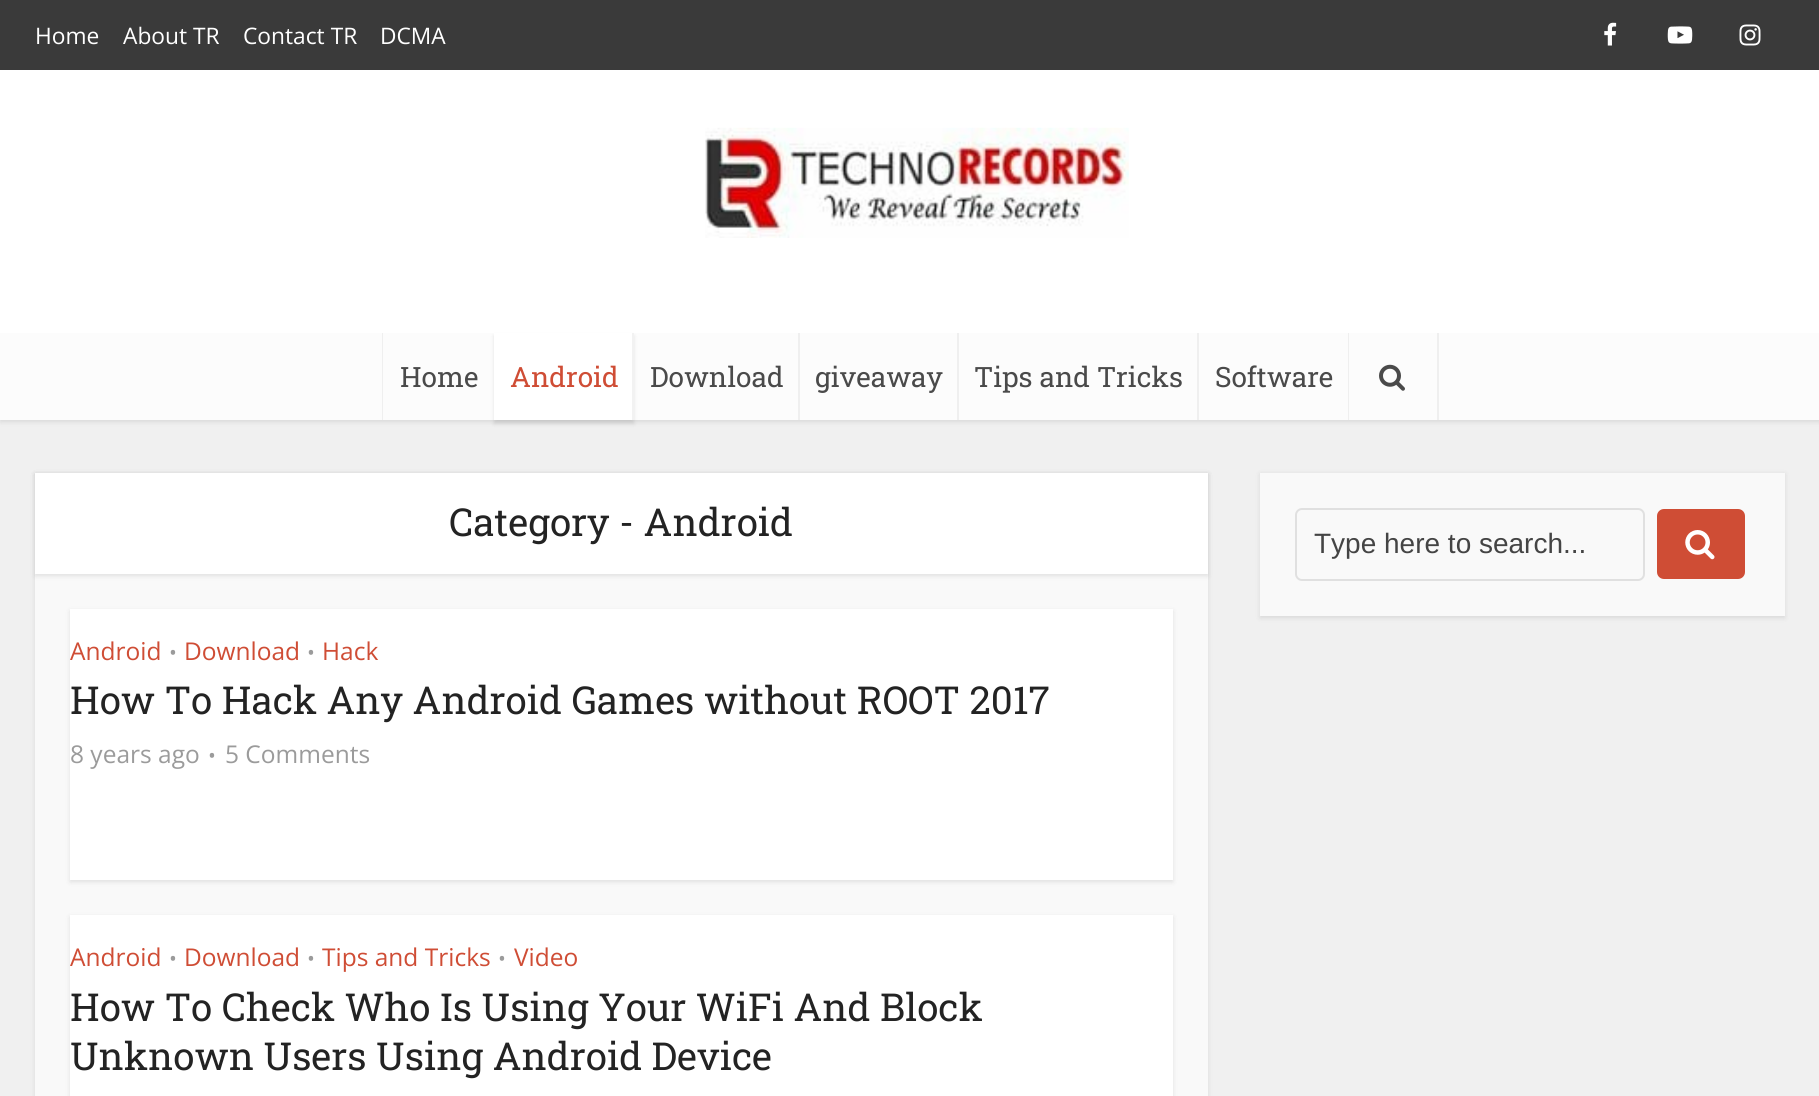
#include <cairo.h>
#include <math.h>
#include <stddef.h>


static void round_rect(cairo_t *cr, double x, double y, double w, double h, double r) {
    cairo_new_sub_path(cr);
    cairo_arc(cr, x + w - r, y + h - r, r, 0, M_PI / 2);
    cairo_arc(cr, x + r, y + h - r, r, M_PI / 2, M_PI);
    cairo_arc(cr, x + r, y + r, r, M_PI, 1.5 * M_PI);
    cairo_arc(cr, x + w - r, y + r, r, 1.5 * M_PI, 2 * M_PI);
    cairo_close_path(cr);
}

static void shadow(cairo_t *cr, double x, double y, double w, double h, double r, double blur, double alpha) {
    cairo_push_group_with_content(cr, CAIRO_CONTENT_ALPHA);
    cairo_set_operator(cr, CAIRO_OPERATOR_SOURCE);
    for (int i = 15; i >= -15 && fmin(w, h) + blur * i / 3 > 0; i -= 2) {
        double e = blur * i / 6;
        cairo_set_source_rgba(cr, 0, 0, 0, alpha * erfc((i - 1) / 8.5) / 2);
        round_rect(cr, x - e, y - e, w + 2 * e, h + 2 * e, fmax(0, fmin(r + e + blur * .6, fmin(w, h) / 2 + e)));
        cairo_fill(cr);
    }
    cairo_pattern_t *soft = cairo_pop_group(cr);
    cairo_mask(cr, soft);
    cairo_pattern_destroy(soft);
}

static void picture(cairo_t *cr, const char *path, double x, double y, double w, double h) {
    cairo_surface_t *image = cairo_image_surface_create_from_png(path);
    cairo_save(cr);
    cairo_set_source_surface(cr, image, x, y);
    cairo_rectangle(cr, x, y, w, h);
    cairo_fill(cr);
    cairo_restore(cr);
    cairo_surface_destroy(image);
}

int main(void) {
    cairo_surface_t *surface = cairo_image_surface_create(CAIRO_FORMAT_RGB24, 1819, 1096);
    cairo_t *cr = cairo_create(surface);
    cairo_font_options_t *options = cairo_font_options_create();
    cairo_font_options_set_hint_metrics(options, CAIRO_HINT_METRICS_OFF);
    cairo_font_options_set_hint_style(options, CAIRO_HINT_STYLE_NONE);
    cairo_set_font_options(cr, options);
    cairo_set_miter_limit(cr, 4);
    cairo_set_source_rgb(cr, 0.941, 0.941, 0.941);
    cairo_paint(cr);
    cairo_set_source_rgb(cr, 0, 0, 0);
    shadow(cr, 0, 2, 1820, 420, 0, 2.5, 0.1);
    cairo_set_source_rgb(cr, 1, 1, 1);
    cairo_rectangle(cr, 0, 70, 1819, 263);
    cairo_fill(cr);
    cairo_set_source_rgb(cr, 0.227, 0.227, 0.227);
    cairo_rectangle(cr, 0, 0, 1819, 70);
    cairo_fill(cr);
    cairo_select_font_face(cr, "Open Sans", CAIRO_FONT_SLANT_NORMAL, CAIRO_FONT_WEIGHT_NORMAL);
    cairo_set_font_size(cr, 22.75);
    cairo_set_source_rgb(cr, 1, 1, 1);
    cairo_move_to(cr, 35, 44);
    cairo_show_text(cr, "Home");
    cairo_move_to(cr, 123, 44);
    cairo_show_text(cr, "About TR");
    cairo_move_to(cr, 243, 44);
    cairo_show_text(cr, "Contact TR");
    cairo_move_to(cr, 380, 44);
    cairo_show_text(cr, "DCMA");
    picture(cr, "img1.png", 1604, 22, 13, 24);
    picture(cr, "img2.png", 1667, 26, 26, 18);
    picture(cr, "img3.png", 1739, 24, 22, 22);
    picture(cr, "img4.png", 705, 127, 424, 111);
    cairo_set_source_rgb(cr, 0.988, 0.988, 0.988);
    cairo_rectangle(cr, 0, 333, 1819, 87);
    cairo_fill(cr);
    cairo_set_source_rgb(cr, 0.937, 0.937, 0.937);
    cairo_rectangle(cr, 382, 333, 1, 87);
    cairo_fill(cr);
    cairo_select_font_face(cr, "Roboto Slab", CAIRO_FONT_SLANT_NORMAL, CAIRO_FONT_WEIGHT_NORMAL);
    cairo_set_font_size(cr, 28);
    cairo_set_source_rgb(cr, 0.29, 0.29, 0.29);
    cairo_move_to(cr, 400, 387);
    cairo_show_text(cr, "Home");
    cairo_set_source_rgb(cr, 0, 0, 0);
    shadow(cr, 494, 336, 140, 88, 0, 2, 0.1);
    cairo_set_source_rgb(cr, 1, 1, 1);
    cairo_rectangle(cr, 494, 333, 138, 87);
    cairo_fill(cr);
    cairo_set_source_rgb(cr, 0.812, 0.302, 0.208);
    cairo_move_to(cr, 510, 387);
    cairo_show_text(cr, "Android");
    cairo_set_source_rgb(cr, 0.949, 0.949, 0.949);
    cairo_rectangle(cr, 632, 333, 2, 87);
    cairo_fill(cr);
    cairo_set_source_rgb(cr, 0.29, 0.29, 0.29);
    cairo_move_to(cr, 650, 387);
    cairo_show_text(cr, "Download");
    cairo_set_source_rgb(cr, 0.937, 0.937, 0.937);
    cairo_rectangle(cr, 798, 333, 2, 87);
    cairo_fill(cr);
    cairo_set_source_rgb(cr, 0.29, 0.29, 0.29);
    cairo_move_to(cr, 815, 387);
    cairo_show_text(cr, "giveaway");
    cairo_set_source_rgb(cr, 0.937, 0.937, 0.937);
    cairo_rectangle(cr, 957, 333, 2, 87);
    cairo_fill(cr);
    cairo_set_source_rgb(cr, 0.29, 0.29, 0.29);
    cairo_move_to(cr, 974, 387);
    cairo_show_text(cr, "Tips and Tricks");
    cairo_set_source_rgb(cr, 0.937, 0.937, 0.937);
    cairo_rectangle(cr, 1197, 333, 2, 87);
    cairo_fill(cr);
    cairo_set_source_rgb(cr, 0.29, 0.29, 0.29);
    cairo_move_to(cr, 1215, 387);
    cairo_show_text(cr, "Software");
    cairo_set_source_rgb(cr, 0.937, 0.937, 0.937);
    cairo_rectangle(cr, 1437, 333, 2, 87);
    cairo_fill(cr);
    cairo_rectangle(cr, 1348, 333, 1, 87);
    cairo_fill(cr);
    picture(cr, "img5.png", 1379, 364, 26, 27);
    cairo_set_source_rgb(cr, 0, 0, 0);
    shadow(cr, 35, 474, 1173, 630, 0, 2.5, 0.1);
    cairo_set_source_rgb(cr, 0.976, 0.976, 0.976);
    cairo_rectangle(cr, 35, 574, 1173, 522);
    cairo_fill(cr);
    cairo_set_source_rgb(cr, 0, 0, 0);
    shadow(cr, 35, 474, 1173, 102, 0, 2.5, 0.1);
    cairo_set_source_rgb(cr, 1, 1, 1);
    cairo_rectangle(cr, 35, 473, 1173, 101);
    cairo_fill(cr);
    cairo_set_font_size(cr, 38.5);
    cairo_set_source_rgb(cr, 0.137, 0.137, 0.137);
    cairo_move_to(cr, 449, 536);
    cairo_show_text(cr, "Category - Android");
    cairo_set_source_rgb(cr, 0, 0, 0);
    shadow(cr, 70, 611, 1103, 271, 0, 2.5, 0.1);
    cairo_set_source_rgb(cr, 1, 1, 1);
    cairo_rectangle(cr, 70, 609, 1103, 271);
    cairo_fill(cr);
    cairo_select_font_face(cr, "Open Sans", CAIRO_FONT_SLANT_NORMAL, CAIRO_FONT_WEIGHT_NORMAL);
    cairo_set_font_size(cr, 24.5);
    cairo_set_source_rgb(cr, 0.812, 0.302, 0.208);
    cairo_move_to(cr, 70, 660);
    cairo_show_text(cr, "Android");
    cairo_set_font_size(cr, 21);
    cairo_set_source_rgb(cr, 0.608, 0.608, 0.608);
    cairo_move_to(cr, 169, 660);
    cairo_show_text(cr, "•");
    cairo_set_font_size(cr, 24.5);
    cairo_set_source_rgb(cr, 0.812, 0.302, 0.208);
    cairo_move_to(cr, 184, 660);
    cairo_show_text(cr, "Download");
    cairo_set_font_size(cr, 21);
    cairo_set_source_rgb(cr, 0.608, 0.608, 0.608);
    cairo_move_to(cr, 307, 660);
    cairo_show_text(cr, "•");
    cairo_set_font_size(cr, 24.5);
    cairo_set_source_rgb(cr, 0.812, 0.302, 0.208);
    cairo_move_to(cr, 322, 660);
    cairo_show_text(cr, "Hack");
    cairo_select_font_face(cr, "Roboto Slab", CAIRO_FONT_SLANT_NORMAL, CAIRO_FONT_WEIGHT_NORMAL);
    cairo_set_font_size(cr, 38.5);
    cairo_set_source_rgb(cr, 0.137, 0.137, 0.137);
    cairo_move_to(cr, 70, 714);
    cairo_show_text(cr, "How To Hack Any Android Games without ROOT 2017");
    cairo_select_font_face(cr, "Open Sans", CAIRO_FONT_SLANT_NORMAL, CAIRO_FONT_WEIGHT_NORMAL);
    cairo_set_font_size(cr, 24.5);
    cairo_set_source_rgb(cr, 0.608, 0.608, 0.608);
    cairo_move_to(cr, 70, 763);
    cairo_show_text(cr, "8 years ago");
    cairo_set_font_size(cr, 21);
    cairo_move_to(cr, 208, 763);
    cairo_show_text(cr, "•");
    cairo_set_font_size(cr, 24.5);
    cairo_move_to(cr, 225, 763);
    cairo_show_text(cr, "5 Comments");
    cairo_set_source_rgb(cr, 0, 0, 0);
    shadow(cr, 70, 917, 1103, 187, 0, 2.5, 0.1);
    cairo_set_source_rgb(cr, 1, 1, 1);
    cairo_rectangle(cr, 70, 915, 1103, 181);
    cairo_fill(cr);
    cairo_set_source_rgb(cr, 0.812, 0.302, 0.208);
    cairo_move_to(cr, 70, 966);
    cairo_show_text(cr, "Android");
    cairo_set_font_size(cr, 21);
    cairo_set_source_rgb(cr, 0.608, 0.608, 0.608);
    cairo_move_to(cr, 169, 966);
    cairo_show_text(cr, "•");
    cairo_set_font_size(cr, 24.5);
    cairo_set_source_rgb(cr, 0.812, 0.302, 0.208);
    cairo_move_to(cr, 184, 966);
    cairo_show_text(cr, "Download");
    cairo_set_font_size(cr, 21);
    cairo_set_source_rgb(cr, 0.608, 0.608, 0.608);
    cairo_move_to(cr, 307, 966);
    cairo_show_text(cr, "•");
    cairo_set_font_size(cr, 24.5);
    cairo_set_source_rgb(cr, 0.812, 0.302, 0.208);
    cairo_move_to(cr, 322, 966);
    cairo_show_text(cr, "Tips and Tricks");
    cairo_set_font_size(cr, 21);
    cairo_set_source_rgb(cr, 0.608, 0.608, 0.608);
    cairo_move_to(cr, 498, 966);
    cairo_show_text(cr, "•");
    cairo_set_font_size(cr, 24.5);
    cairo_set_source_rgb(cr, 0.812, 0.302, 0.208);
    cairo_move_to(cr, 514, 966);
    cairo_show_text(cr, "Video");
    cairo_select_font_face(cr, "Roboto Slab", CAIRO_FONT_SLANT_NORMAL, CAIRO_FONT_WEIGHT_NORMAL);
    cairo_set_font_size(cr, 38.5);
    cairo_set_source_rgb(cr, 0.137, 0.137, 0.137);
    cairo_move_to(cr, 70, 1021);
    cairo_show_text(cr, "How To Check Who Is Using Your WiFi And Block");
    cairo_move_to(cr, 70, 1070);
    cairo_show_text(cr, "Unknown Users Using Android Device");
    cairo_set_source_rgb(cr, 0, 0, 0);
    shadow(cr, 1260, 474, 525, 144, 0, 2.5, 0.1);
    cairo_set_source_rgb(cr, 0.976, 0.976, 0.976);
    cairo_rectangle(cr, 1260, 473, 525, 143);
    cairo_fill(cr);
    round_rect(cr, 1296, 509, 348, 71, 6);
    cairo_set_source_rgb(cr, 0.878, 0.878, 0.878);
    cairo_stroke(cr);
    cairo_select_font_face(cr, "Liberation Sans", CAIRO_FONT_SLANT_NORMAL, CAIRO_FONT_WEIGHT_NORMAL);
    cairo_set_font_size(cr, 28);
    cairo_set_source_rgb(cr, 0.267, 0.267, 0.267);
    cairo_move_to(cr, 1314, 553);
    cairo_show_text(cr, "Type here to search...");
    cairo_set_source_rgb(cr, 0.812, 0.302, 0.208);
    round_rect(cr, 1657, 509, 88, 70, 7);
    cairo_fill(cr);
    picture(cr, "img6.png", 1685, 530, 30, 30);
    cairo_surface_write_to_png(surface, "page.png");
    cairo_font_options_destroy(options);
    cairo_destroy(cr);
    cairo_surface_destroy(surface);
    return 0;
}
